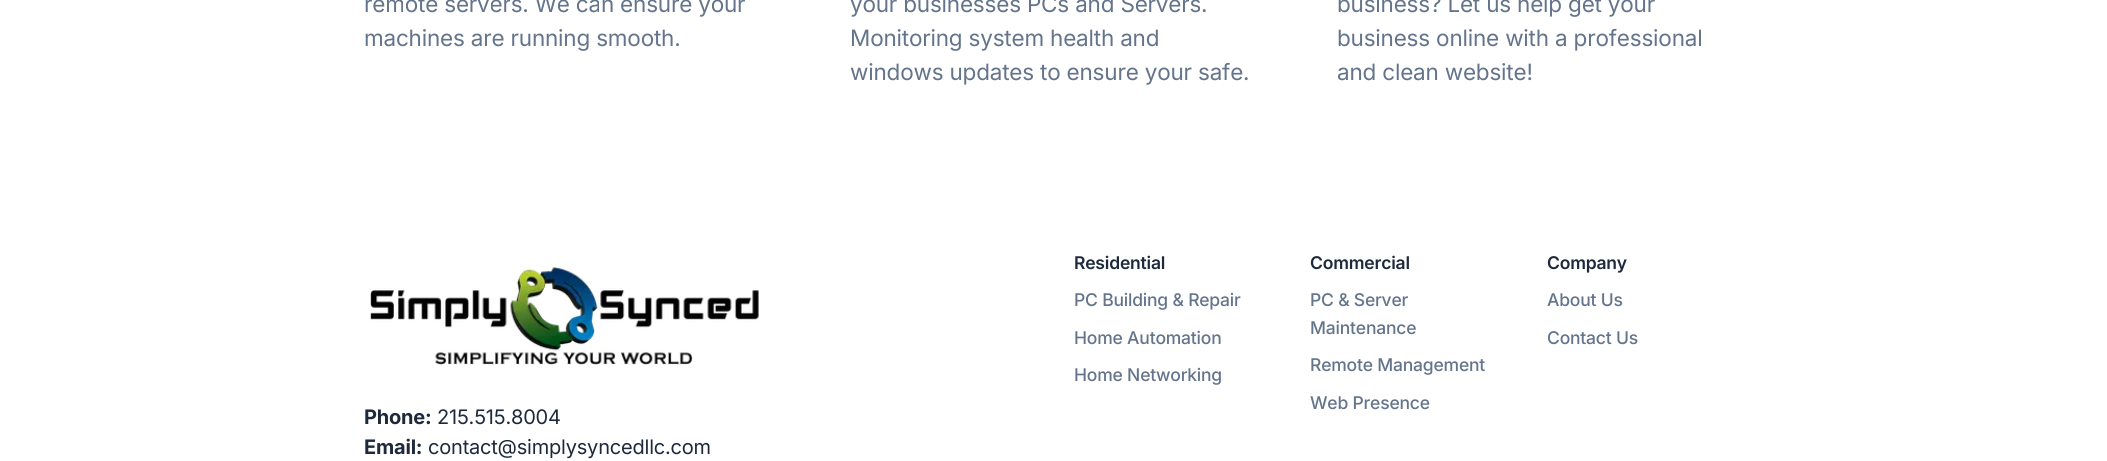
#include <cairo.h>
#include <math.h>
#include <stddef.h>


static void spaced_text(cairo_t *cr, double x, double y, const char *s, double letter, double word) {
    cairo_move_to(cr, x, y);
    while (*s) {
        char ch[5] = {0};
        int n = 0;
        do ch[n++] = *s++; while ((*s & 0xC0) == 0x80);
        cairo_show_text(cr, ch);
        cairo_rel_move_to(cr, letter + word * (*ch == ' '), 0);
    }
}

static void picture(cairo_t *cr, const char *path, double x, double y, double w, double h) {
    cairo_surface_t *image = cairo_image_surface_create_from_png(path);
    cairo_save(cr);
    cairo_set_source_surface(cr, image, x, y);
    cairo_rectangle(cr, x, y, w, h);
    cairo_fill(cr);
    cairo_restore(cr);
    cairo_surface_destroy(image);
}

int main(void) {
    cairo_surface_t *surface = cairo_image_surface_create(CAIRO_FORMAT_RGB24, 2107, 461);
    cairo_t *cr = cairo_create(surface);
    cairo_font_options_t *options = cairo_font_options_create();
    cairo_font_options_set_hint_metrics(options, CAIRO_HINT_METRICS_OFF);
    cairo_font_options_set_hint_style(options, CAIRO_HINT_STYLE_NONE);
    cairo_set_font_options(cr, options);
    cairo_set_miter_limit(cr, 4);
    cairo_set_source_rgb(cr, 1, 1, 1);
    cairo_paint(cr);
    cairo_select_font_face(cr, "Inter", CAIRO_FONT_SLANT_NORMAL, CAIRO_FONT_WEIGHT_NORMAL);
    cairo_set_font_size(cr, 22.5);
    cairo_set_source_rgb(cr, 0.392, 0.455, 0.545);
    spaced_text(cr, 364, 12, "remote servers. We can ensure your", -0.2, 0);
    spaced_text(cr, 364, 46, "machines are running smooth.", -0.2, 0);
    spaced_text(cr, 850, 12, "your businesses PCs and Servers.", -0.2, 0);
    spaced_text(cr, 850, 46, "Monitoring system health and", -0.2, 0);
    spaced_text(cr, 850, 80, "windows updates to ensure your safe.", -0.2, 0);
    spaced_text(cr, 1337, 12, "business? Let us help get your", -0.2, 0);
    spaced_text(cr, 1337, 46, "business online with a professional", -0.2, 0);
    spaced_text(cr, 1337, 80, "and clean website!", -0.2, 0);
    cairo_select_font_face(cr, "Inter SemiBold", CAIRO_FONT_SLANT_NORMAL, CAIRO_FONT_WEIGHT_NORMAL);
    cairo_set_font_size(cr, 17.5);
    cairo_set_source_rgb(cr, 0.118, 0.161, 0.231);
    spaced_text(cr, 1074, 269, "Residential", -0.2, 0);
    cairo_select_font_face(cr, "Inter Medium", CAIRO_FONT_SLANT_NORMAL, CAIRO_FONT_WEIGHT_NORMAL);
    cairo_set_source_rgb(cr, 0.392, 0.455, 0.545);
    spaced_text(cr, 1074, 306, "PC Building & Repair", -0.2, 0);
    spaced_text(cr, 1074, 344, "Home Automation", -0.2, 0);
    spaced_text(cr, 1074, 381, "Home Networking", -0.2, 0);
    cairo_select_font_face(cr, "Inter SemiBold", CAIRO_FONT_SLANT_NORMAL, CAIRO_FONT_WEIGHT_NORMAL);
    cairo_set_source_rgb(cr, 0.118, 0.161, 0.231);
    spaced_text(cr, 1310, 269, "Commercial", -0.2, 0);
    cairo_select_font_face(cr, "Inter Medium", CAIRO_FONT_SLANT_NORMAL, CAIRO_FONT_WEIGHT_NORMAL);
    cairo_set_source_rgb(cr, 0.392, 0.455, 0.545);
    spaced_text(cr, 1310, 306, "PC & Server", -0.2, 0);
    spaced_text(cr, 1310, 334, "Maintenance", -0.2, 0);
    spaced_text(cr, 1310, 371, "Remote Management", -0.2, 0);
    spaced_text(cr, 1310, 409, "Web Presence", -0.2, 0);
    cairo_select_font_face(cr, "Inter SemiBold", CAIRO_FONT_SLANT_NORMAL, CAIRO_FONT_WEIGHT_NORMAL);
    cairo_set_source_rgb(cr, 0.118, 0.161, 0.231);
    spaced_text(cr, 1547, 269, "Company", -0.2, 0);
    cairo_select_font_face(cr, "Inter Medium", CAIRO_FONT_SLANT_NORMAL, CAIRO_FONT_WEIGHT_NORMAL);
    cairo_set_source_rgb(cr, 0.392, 0.455, 0.545);
    spaced_text(cr, 1547, 306, "About Us", -0.2, 0);
    spaced_text(cr, 1547, 344, "Contact Us", -0.2, 0);
    picture(cr, "img1.png", 370, 267, 389, 98);
    cairo_select_font_face(cr, "Inter", CAIRO_FONT_SLANT_NORMAL, CAIRO_FONT_WEIGHT_BOLD);
    cairo_set_font_size(cr, 20);
    cairo_set_source_rgb(cr, 0.118, 0.161, 0.231);
    spaced_text(cr, 364, 424, "Phone:", -0.2, 0);
    cairo_select_font_face(cr, "Inter", CAIRO_FONT_SLANT_NORMAL, CAIRO_FONT_WEIGHT_NORMAL);
    spaced_text(cr, 437, 424, "215.515.8004", -0.2, 0);
    cairo_select_font_face(cr, "Inter", CAIRO_FONT_SLANT_NORMAL, CAIRO_FONT_WEIGHT_BOLD);
    spaced_text(cr, 364, 454, "Email:", -0.2, 0);
    cairo_select_font_face(cr, "Inter", CAIRO_FONT_SLANT_NORMAL, CAIRO_FONT_WEIGHT_NORMAL);
    spaced_text(cr, 428, 454, "contact@simplysyncedllc.com", -0.2, 0);
    cairo_surface_write_to_png(surface, "page.png");
    cairo_font_options_destroy(options);
    cairo_destroy(cr);
    cairo_surface_destroy(surface);
    return 0;
}
